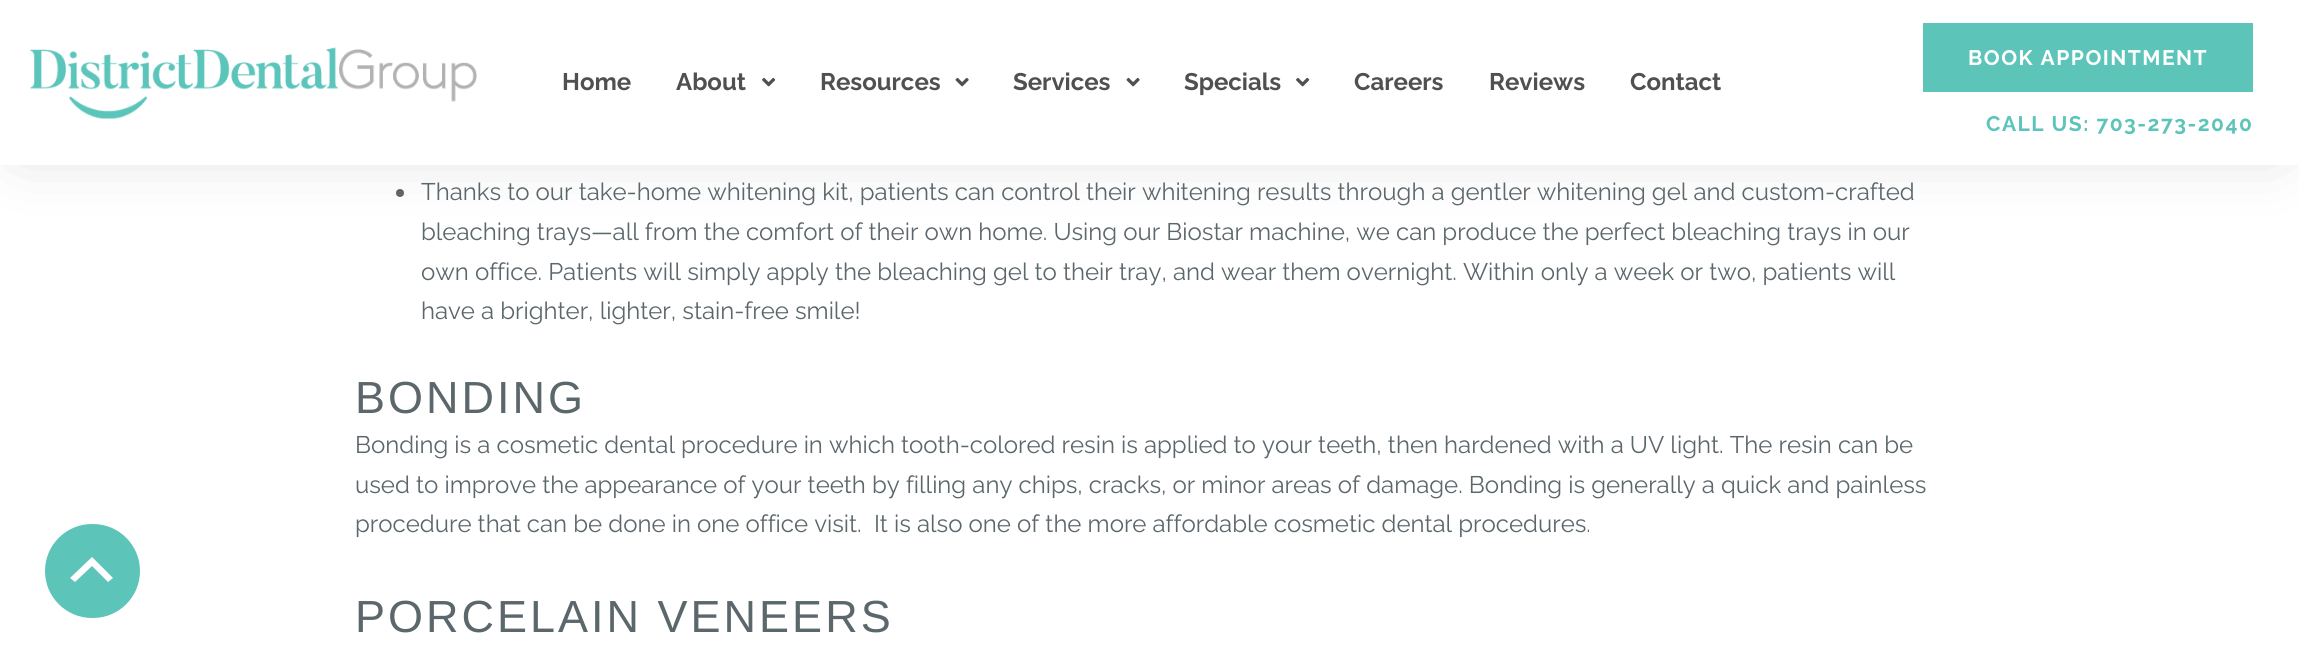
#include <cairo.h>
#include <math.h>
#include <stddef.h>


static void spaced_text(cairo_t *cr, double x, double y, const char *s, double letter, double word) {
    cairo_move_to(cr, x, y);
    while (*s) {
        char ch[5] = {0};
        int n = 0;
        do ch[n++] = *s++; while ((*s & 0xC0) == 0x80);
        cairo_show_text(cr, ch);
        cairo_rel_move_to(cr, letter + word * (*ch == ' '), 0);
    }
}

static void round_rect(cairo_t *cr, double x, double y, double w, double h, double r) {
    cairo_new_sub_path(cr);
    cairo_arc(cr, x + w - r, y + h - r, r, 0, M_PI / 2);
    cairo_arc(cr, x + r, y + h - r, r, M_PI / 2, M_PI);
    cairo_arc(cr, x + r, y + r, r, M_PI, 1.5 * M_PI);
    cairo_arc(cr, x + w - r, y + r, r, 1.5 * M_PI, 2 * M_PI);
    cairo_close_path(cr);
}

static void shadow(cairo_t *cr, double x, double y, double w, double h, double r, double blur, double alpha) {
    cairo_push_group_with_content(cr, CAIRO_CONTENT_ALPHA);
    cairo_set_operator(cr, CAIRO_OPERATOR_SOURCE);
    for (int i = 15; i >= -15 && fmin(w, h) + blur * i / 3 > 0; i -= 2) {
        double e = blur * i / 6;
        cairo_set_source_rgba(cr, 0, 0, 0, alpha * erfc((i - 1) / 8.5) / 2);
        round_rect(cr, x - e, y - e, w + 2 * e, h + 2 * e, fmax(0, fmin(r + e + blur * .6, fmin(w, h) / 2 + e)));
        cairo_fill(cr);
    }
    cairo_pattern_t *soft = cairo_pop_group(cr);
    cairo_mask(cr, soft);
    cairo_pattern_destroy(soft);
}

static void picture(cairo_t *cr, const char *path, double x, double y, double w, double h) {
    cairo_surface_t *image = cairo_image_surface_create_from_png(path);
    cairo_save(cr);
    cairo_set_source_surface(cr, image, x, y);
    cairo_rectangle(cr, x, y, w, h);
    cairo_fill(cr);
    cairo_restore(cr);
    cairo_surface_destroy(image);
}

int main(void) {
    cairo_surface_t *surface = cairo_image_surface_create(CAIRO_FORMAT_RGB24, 2299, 662);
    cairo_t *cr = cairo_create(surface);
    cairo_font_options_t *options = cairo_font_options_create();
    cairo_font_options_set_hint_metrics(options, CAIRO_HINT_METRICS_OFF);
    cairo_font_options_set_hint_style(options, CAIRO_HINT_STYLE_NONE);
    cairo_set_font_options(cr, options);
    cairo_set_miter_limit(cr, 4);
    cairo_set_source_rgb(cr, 1, 1, 1);
    cairo_paint(cr);
    cairo_set_source_rgb(cr, 0.365, 0.769, 0.729);
    round_rect(cr, 45, 524, 95, 94, 47);
    cairo_fill(cr);
    cairo_set_source_rgb(cr, 1, 1, 1);
    cairo_new_path(cr);
    cairo_move_to(cr, 113, 578);
    cairo_line_to(cr, 92, 557);
    cairo_line_to(cr, 70, 578);
    cairo_line_to(cr, 75, 582);
    cairo_line_to(cr, 92, 566);
    cairo_line_to(cr, 108, 582);
    cairo_close_path(cr);
    cairo_fill(cr);
    cairo_set_source_rgb(cr, 0.361, 0.404, 0.424);
    cairo_arc(cr, 400, 193, 4, 0, 2 * M_PI);
    cairo_fill(cr);
    cairo_set_source_rgb(cr, 0, 0, 0);
    shadow(cr, 23, 23, 2254, 120, 0, 34, 0.2);
    cairo_set_source_rgb(cr, 1, 1, 1);
    cairo_rectangle(cr, 0, 0, 2299, 165);
    cairo_fill(cr);
    picture(cr, "img1.png", 30, 47, 447, 72);
    cairo_select_font_face(cr, "Raleway", CAIRO_FONT_SLANT_NORMAL, CAIRO_FONT_WEIGHT_BOLD);
    cairo_set_font_size(cr, 24);
    cairo_set_source_rgb(cr, 0.314, 0.314, 0.314);
    cairo_move_to(cr, 562, 90);
    cairo_show_text(cr, "Home");
    cairo_move_to(cr, 676, 90);
    cairo_show_text(cr, "About");
    picture(cr, "img2.png", 762, 77, 14, 10);
    cairo_move_to(cr, 820, 90);
    cairo_show_text(cr, "Resources");
    picture(cr, "img3.png", 955, 77, 14, 10);
    cairo_move_to(cr, 1013, 90);
    cairo_show_text(cr, "Services");
    picture(cr, "img3.png", 1126, 77, 14, 10);
    cairo_move_to(cr, 1184, 90);
    cairo_show_text(cr, "Specials");
    picture(cr, "img2.png", 1296, 77, 14, 10);
    cairo_move_to(cr, 1354, 90);
    cairo_show_text(cr, "Careers");
    cairo_move_to(cr, 1489, 90);
    cairo_show_text(cr, "Reviews");
    cairo_move_to(cr, 1630, 90);
    cairo_show_text(cr, "Contact");
    cairo_set_source_rgb(cr, 0.365, 0.769, 0.729);
    cairo_rectangle(cr, 1923, 23, 330, 69);
    cairo_fill(cr);
    cairo_set_font_size(cr, 21);
    cairo_set_source_rgb(cr, 1, 1, 1);
    spaced_text(cr, 1968, 65, "BOOK APPOINTMENT", 1.5, 0);
    cairo_set_source_rgb(cr, 0.365, 0.769, 0.729);
    spaced_text(cr, 1986, 131, "CALL US: 703-273-2040", 1.5, 0);
    cairo_select_font_face(cr, "Raleway", CAIRO_FONT_SLANT_NORMAL, CAIRO_FONT_WEIGHT_NORMAL);
    cairo_set_font_size(cr, 24);
    cairo_set_source_rgb(cr, 0.361, 0.404, 0.424);
    cairo_move_to(cr, 421, 200);
    cairo_show_text(cr, "Thanks to our take-home whitening kit, patients can control their whitening results through a gentler whitening gel and custom-crafted");
    cairo_move_to(cr, 421, 240);
    cairo_show_text(cr, "bleaching trays—all from the comfort of their own home. Using our Biostar machine, we can produce the perfect bleaching trays in our");
    cairo_move_to(cr, 421, 280);
    cairo_show_text(cr, "own office. Patients will simply apply the bleaching gel to their tray, and wear them overnight. Within only a week or two, patients will");
    cairo_move_to(cr, 421, 319);
    cairo_show_text(cr, "have a brighter, lighter, stain-free smile!");
    cairo_select_font_face(cr, "Liberation Sans", CAIRO_FONT_SLANT_NORMAL, CAIRO_FONT_WEIGHT_NORMAL);
    cairo_set_font_size(cr, 45);
    spaced_text(cr, 355, 413, "BONDING", 3, 0);
    cairo_select_font_face(cr, "Raleway", CAIRO_FONT_SLANT_NORMAL, CAIRO_FONT_WEIGHT_NORMAL);
    cairo_set_font_size(cr, 24);
    cairo_move_to(cr, 355, 453);
    cairo_show_text(cr, "Bonding is a cosmetic dental procedure in which tooth-colored resin is applied to your teeth, then hardened with a UV light. The resin can be");
    cairo_move_to(cr, 355, 493);
    cairo_show_text(cr, "used to improve the appearance of your teeth by filling any chips, cracks, or minor areas of damage. Bonding is generally a quick and painless");
    cairo_move_to(cr, 355, 532);
    cairo_show_text(cr, "procedure that can be done in one office visit.  It is also one of the more affordable cosmetic dental procedures.");
    cairo_select_font_face(cr, "Liberation Sans", CAIRO_FONT_SLANT_NORMAL, CAIRO_FONT_WEIGHT_NORMAL);
    cairo_set_font_size(cr, 45);
    spaced_text(cr, 355, 632, "PORCELAIN VENEERS", 3, 0);
    cairo_surface_write_to_png(surface, "page.png");
    cairo_font_options_destroy(options);
    cairo_destroy(cr);
    cairo_surface_destroy(surface);
    return 0;
}
